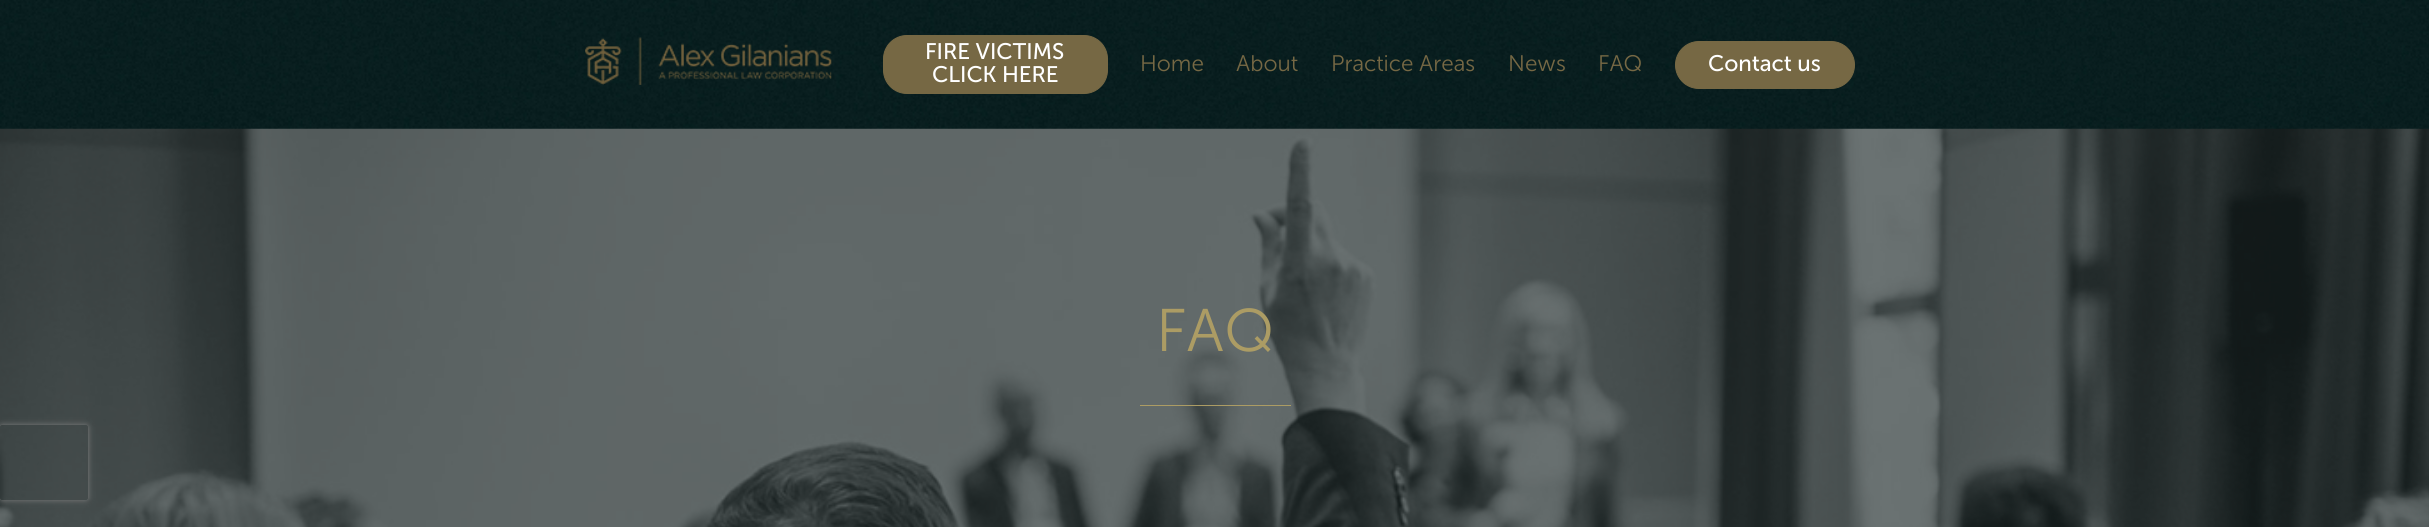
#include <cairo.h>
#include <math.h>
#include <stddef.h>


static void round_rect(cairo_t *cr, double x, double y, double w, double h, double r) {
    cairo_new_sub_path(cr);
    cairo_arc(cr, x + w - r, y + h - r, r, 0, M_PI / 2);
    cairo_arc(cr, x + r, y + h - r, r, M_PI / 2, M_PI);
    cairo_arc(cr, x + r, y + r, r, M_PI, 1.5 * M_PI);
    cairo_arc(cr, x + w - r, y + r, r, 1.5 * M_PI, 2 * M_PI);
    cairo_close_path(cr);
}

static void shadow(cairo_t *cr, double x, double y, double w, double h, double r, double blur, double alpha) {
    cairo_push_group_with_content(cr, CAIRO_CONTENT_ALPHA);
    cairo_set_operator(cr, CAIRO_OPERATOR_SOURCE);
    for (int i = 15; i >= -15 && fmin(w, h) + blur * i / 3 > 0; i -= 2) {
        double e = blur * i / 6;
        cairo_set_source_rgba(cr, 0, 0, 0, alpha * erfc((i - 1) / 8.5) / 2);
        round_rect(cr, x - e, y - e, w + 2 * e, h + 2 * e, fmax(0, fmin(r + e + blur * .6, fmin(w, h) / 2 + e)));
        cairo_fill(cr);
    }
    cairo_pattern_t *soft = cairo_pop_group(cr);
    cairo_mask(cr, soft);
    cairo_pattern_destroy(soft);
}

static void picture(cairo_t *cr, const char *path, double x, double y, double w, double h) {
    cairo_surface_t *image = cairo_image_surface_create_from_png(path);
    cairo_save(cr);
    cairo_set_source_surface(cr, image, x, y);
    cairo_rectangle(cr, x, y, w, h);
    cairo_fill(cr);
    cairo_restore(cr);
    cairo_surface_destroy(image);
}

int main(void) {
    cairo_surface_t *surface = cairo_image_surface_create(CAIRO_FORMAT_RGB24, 2429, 527);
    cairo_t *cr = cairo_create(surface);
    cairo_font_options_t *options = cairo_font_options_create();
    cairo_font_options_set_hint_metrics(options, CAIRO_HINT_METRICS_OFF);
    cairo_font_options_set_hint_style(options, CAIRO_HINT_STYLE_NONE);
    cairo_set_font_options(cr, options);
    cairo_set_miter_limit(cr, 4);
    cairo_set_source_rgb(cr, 1, 1, 1);
    cairo_paint(cr);
    picture(cr, "img3.png", 0, 128, 2429, 399);
    picture(cr, "img1.png", 0, 0, 2429, 129);
    picture(cr, "img2.png", 585, 37, 247, 48);
    cairo_set_source_rgb(cr, 0.463, 0.408, 0.267);
    round_rect(cr, 883.5, 35.5, 224, 58, 23.5);
    cairo_fill_preserve(cr);
    cairo_set_line_width(cr, 1);
    cairo_stroke(cr);
    cairo_select_font_face(cr, "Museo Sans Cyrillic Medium", CAIRO_FONT_SLANT_NORMAL, CAIRO_FONT_WEIGHT_NORMAL);
    cairo_set_font_size(cr, 22.5);
    cairo_set_source_rgb(cr, 1, 1, 1);
    cairo_move_to(cr, 925, 59);
    cairo_show_text(cr, "FIRE VICTIMS");
    cairo_move_to(cr, 932, 82);
    cairo_show_text(cr, "CLICK HERE");
    cairo_select_font_face(cr, "Museo Sans Cyrillic Light", CAIRO_FONT_SLANT_NORMAL, CAIRO_FONT_WEIGHT_NORMAL);
    cairo_set_source_rgb(cr, 0.463, 0.408, 0.267);
    cairo_move_to(cr, 1140, 71);
    cairo_show_text(cr, "Home");
    cairo_move_to(cr, 1236, 71);
    cairo_show_text(cr, "About");
    cairo_move_to(cr, 1331, 71);
    cairo_show_text(cr, "Practice Areas");
    cairo_move_to(cr, 1508, 71);
    cairo_show_text(cr, "News");
    cairo_move_to(cr, 1598, 71);
    cairo_show_text(cr, "FAQ");
    round_rect(cr, 1675.5, 41.5, 179, 47, 23.5);
    cairo_fill_preserve(cr);
    cairo_stroke(cr);
    cairo_select_font_face(cr, "Museo Sans Cyrillic Medium", CAIRO_FONT_SLANT_NORMAL, CAIRO_FONT_WEIGHT_NORMAL);
    cairo_set_source_rgb(cr, 1, 1, 1);
    cairo_move_to(cr, 1708, 71);
    cairo_show_text(cr, "Contact us");
    cairo_select_font_face(cr, "Museo Sans Cyrillic Light", CAIRO_FONT_SLANT_NORMAL, CAIRO_FONT_WEIGHT_NORMAL);
    cairo_set_font_size(cr, 60);
    cairo_set_source_rgb(cr, 0.675, 0.612, 0.392);
    cairo_move_to(cr, 1156, 351);
    cairo_show_text(cr, "FAQ");
    cairo_rectangle(cr, 1140, 405, 151, 1);
    cairo_fill(cr);
    cairo_save(cr);
    cairo_set_fill_rule(cr, CAIRO_FILL_RULE_EVEN_ODD);
    cairo_new_path(cr);
    cairo_move_to(cr, 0, 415);
    cairo_line_to(cr, 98, 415);
    cairo_line_to(cr, 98, 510);
    cairo_line_to(cr, 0, 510);
    cairo_close_path(cr);
    cairo_move_to(cr, 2.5, 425);
    cairo_line_to(cr, 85.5, 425);
    cairo_curve_to(cr, 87, 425, 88, 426, 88, 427.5);
    cairo_line_to(cr, 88, 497.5);
    cairo_curve_to(cr, 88, 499, 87, 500, 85.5, 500);
    cairo_line_to(cr, 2.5, 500);
    cairo_curve_to(cr, 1, 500, 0, 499, 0, 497.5);
    cairo_line_to(cr, 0, 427.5);
    cairo_curve_to(cr, 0, 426, 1, 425, 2.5, 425);
    cairo_close_path(cr);
    cairo_clip(cr);
    cairo_set_source_rgb(cr, 0.502, 0.502, 0.502);
    shadow(cr, 0, 425, 88, 75, 2.5, 3, 1);
    cairo_restore(cr);
    cairo_surface_write_to_png(surface, "page.png");
    cairo_font_options_destroy(options);
    cairo_destroy(cr);
    cairo_surface_destroy(surface);
    return 0;
}
